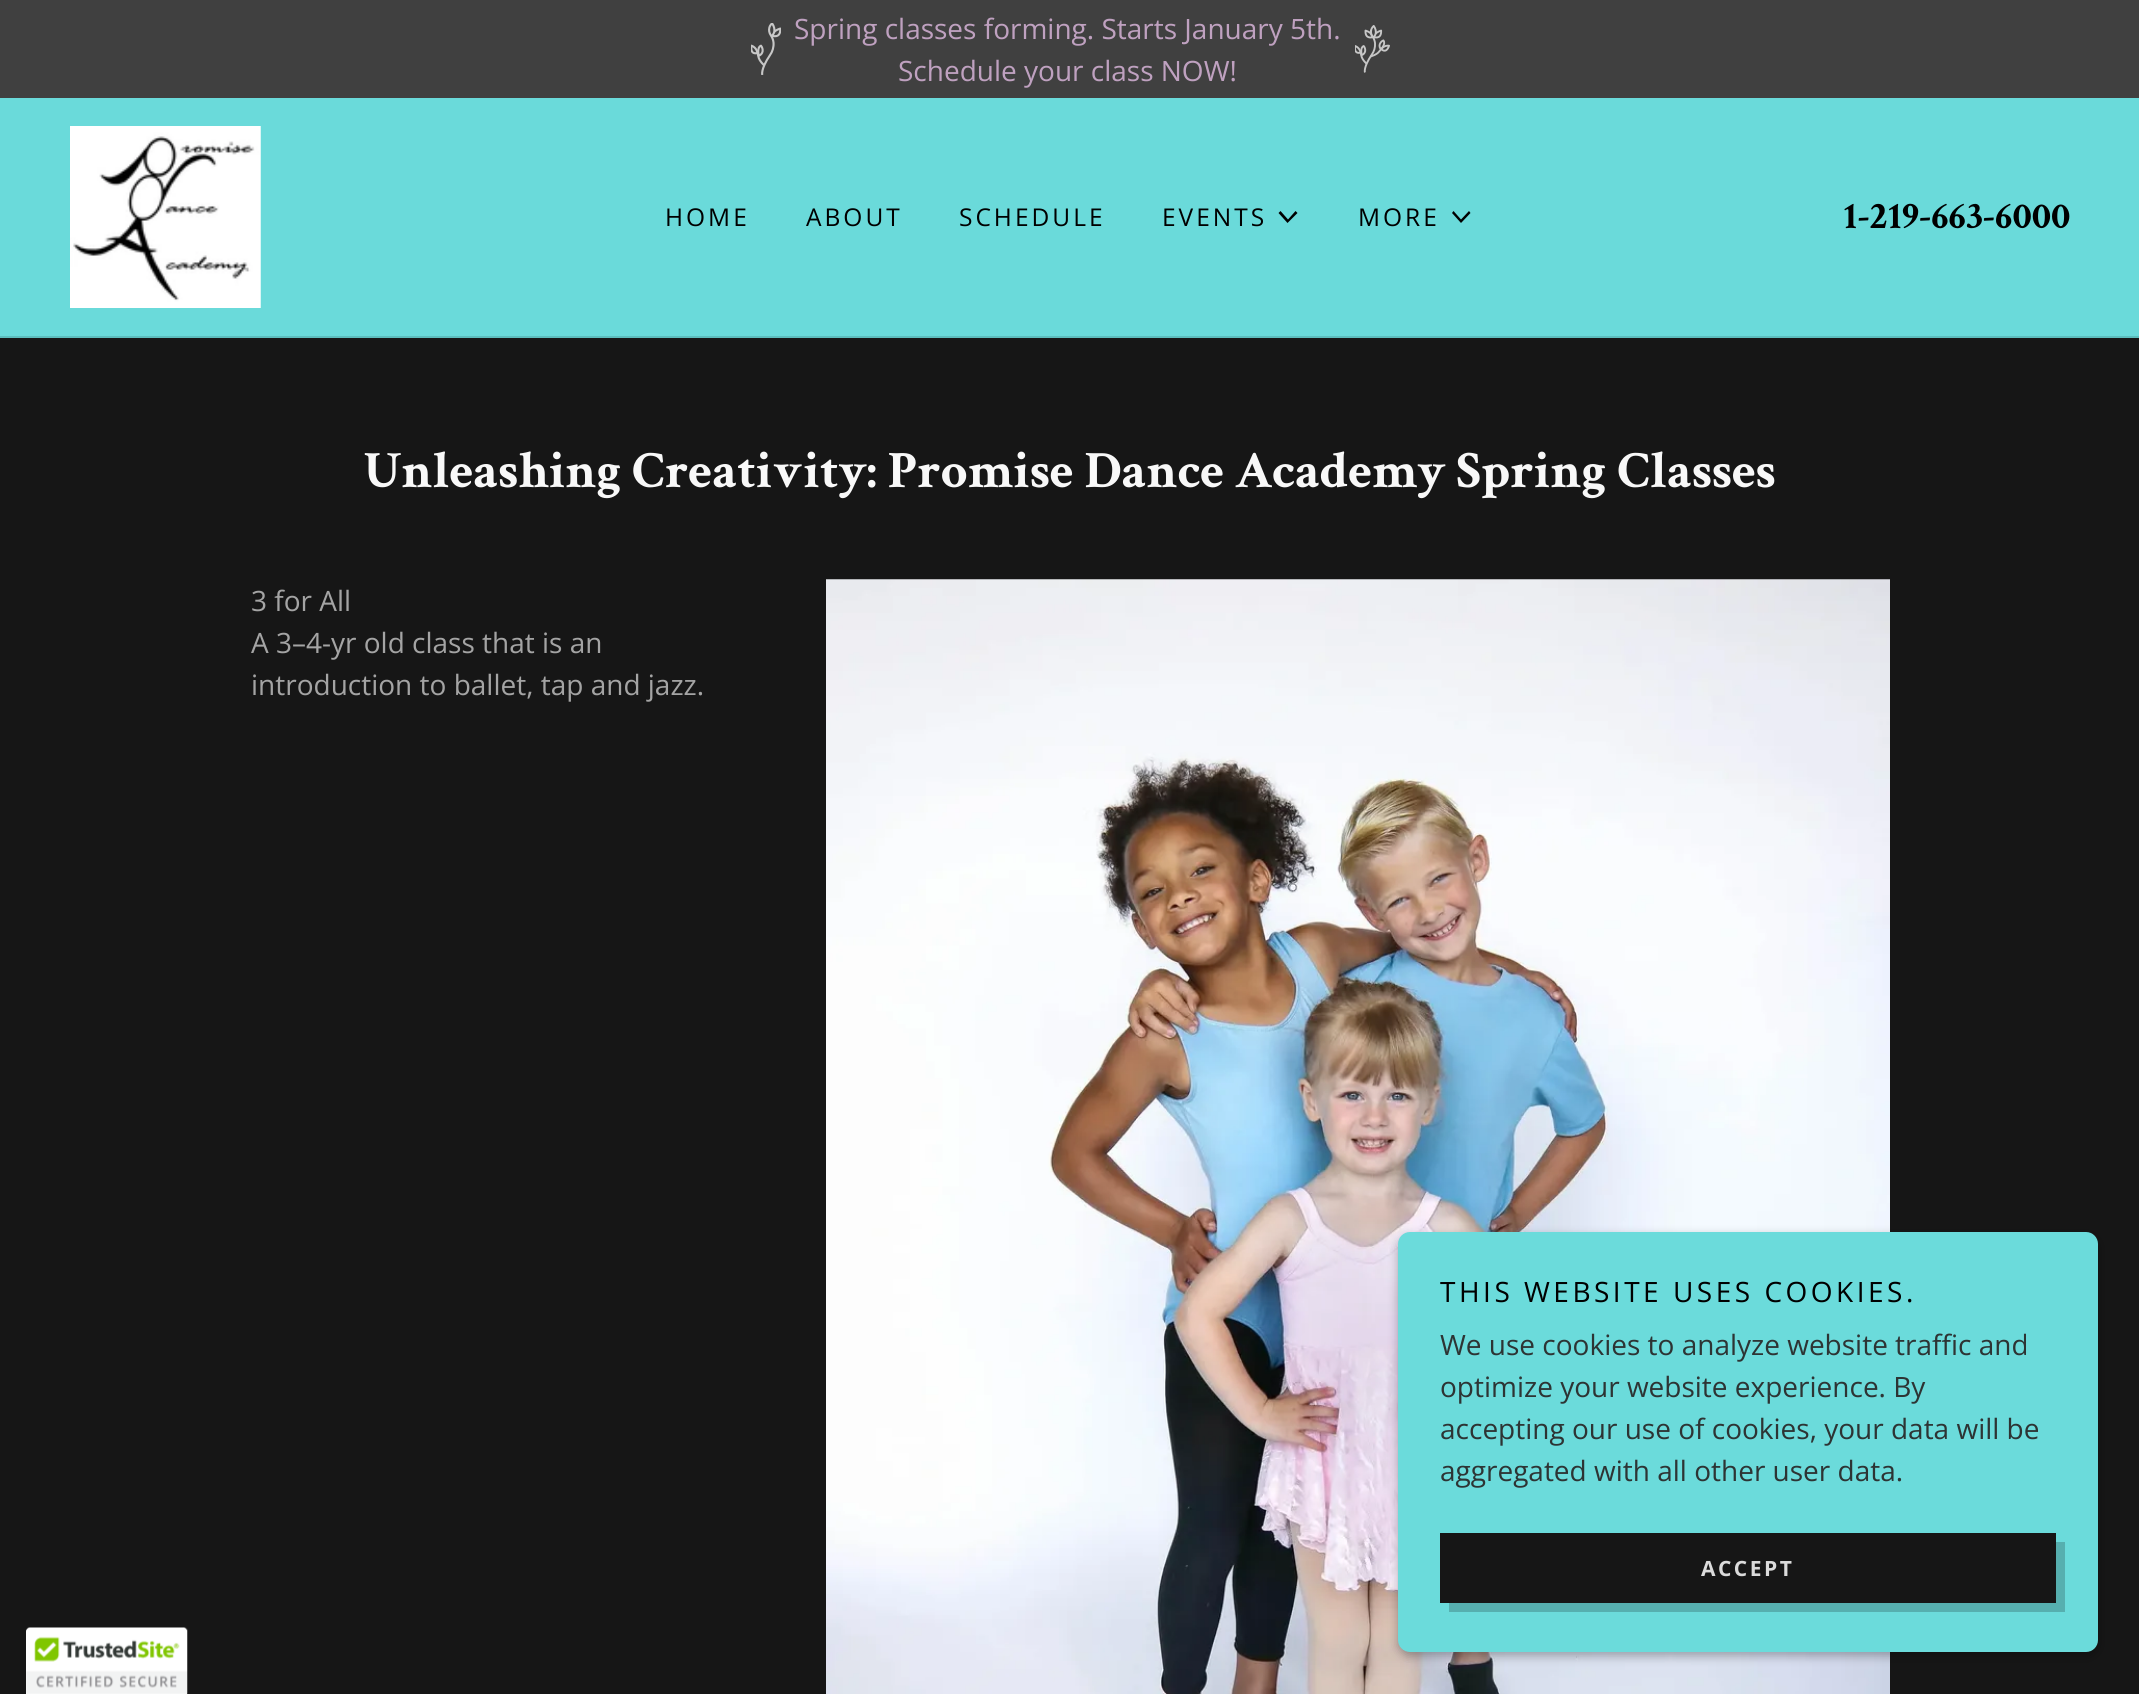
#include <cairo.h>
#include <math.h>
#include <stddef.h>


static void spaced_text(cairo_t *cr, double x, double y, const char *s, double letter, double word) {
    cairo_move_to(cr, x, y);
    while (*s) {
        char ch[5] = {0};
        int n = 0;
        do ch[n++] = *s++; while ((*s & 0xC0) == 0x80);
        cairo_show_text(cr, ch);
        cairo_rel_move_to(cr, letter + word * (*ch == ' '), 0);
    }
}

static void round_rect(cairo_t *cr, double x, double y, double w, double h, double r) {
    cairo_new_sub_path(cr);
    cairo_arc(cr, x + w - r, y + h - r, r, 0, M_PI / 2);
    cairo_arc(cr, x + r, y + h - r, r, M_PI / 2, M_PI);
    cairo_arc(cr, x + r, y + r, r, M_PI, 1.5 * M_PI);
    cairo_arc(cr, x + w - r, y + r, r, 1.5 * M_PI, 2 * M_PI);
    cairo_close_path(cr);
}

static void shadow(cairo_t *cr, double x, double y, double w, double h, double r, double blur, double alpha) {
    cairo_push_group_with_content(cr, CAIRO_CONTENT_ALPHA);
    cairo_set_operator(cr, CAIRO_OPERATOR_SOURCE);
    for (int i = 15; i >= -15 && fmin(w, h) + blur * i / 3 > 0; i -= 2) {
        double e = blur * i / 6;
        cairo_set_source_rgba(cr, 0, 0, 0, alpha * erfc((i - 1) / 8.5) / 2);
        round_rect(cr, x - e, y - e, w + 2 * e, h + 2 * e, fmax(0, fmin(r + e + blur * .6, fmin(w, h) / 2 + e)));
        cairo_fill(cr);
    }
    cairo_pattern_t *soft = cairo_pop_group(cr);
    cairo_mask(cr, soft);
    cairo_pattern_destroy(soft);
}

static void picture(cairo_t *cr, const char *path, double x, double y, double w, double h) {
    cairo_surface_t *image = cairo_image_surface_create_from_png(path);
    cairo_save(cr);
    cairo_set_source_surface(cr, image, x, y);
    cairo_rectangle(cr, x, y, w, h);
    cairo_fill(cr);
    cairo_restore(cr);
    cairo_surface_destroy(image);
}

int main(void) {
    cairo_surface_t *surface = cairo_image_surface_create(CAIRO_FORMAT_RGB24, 2139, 1694);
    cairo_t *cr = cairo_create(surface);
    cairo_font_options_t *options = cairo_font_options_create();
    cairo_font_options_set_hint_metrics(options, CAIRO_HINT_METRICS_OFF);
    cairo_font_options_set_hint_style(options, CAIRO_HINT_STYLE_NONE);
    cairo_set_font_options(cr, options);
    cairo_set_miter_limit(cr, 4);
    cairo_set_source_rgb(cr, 0.416, 0.855, 0.855);
    cairo_paint(cr);
    cairo_set_source_rgb(cr, 0.251, 0.251, 0.251);
    cairo_rectangle(cr, 0, 0, 2139, 98);
    cairo_fill(cr);
    picture(cr, "img1.png", 751, 23, 30, 52);
    cairo_select_font_face(cr, "Open Sans", CAIRO_FONT_SLANT_NORMAL, CAIRO_FONT_WEIGHT_NORMAL);
    cairo_set_font_size(cr, 28);
    cairo_set_source_rgb(cr, 0.749, 0.631, 0.753);
    cairo_move_to(cr, 794, 39);
    cairo_show_text(cr, "Spring classes forming. Starts January 5th.");
    cairo_move_to(cr, 898, 81);
    cairo_show_text(cr, "Schedule your class NOW!");
    picture(cr, "img2.png", 1355, 25, 35, 48);
    picture(cr, "img3.png", 70, 126, 191, 182);
    cairo_set_font_size(cr, 24.5);
    cairo_set_source_rgb(cr, 0, 0, 0);
    spaced_text(cr, 665, 226, "HOME", 3, 0);
    spaced_text(cr, 806, 226, "ABOUT", 3, 0);
    spaced_text(cr, 959, 226, "SCHEDULE", 3, 0);
    spaced_text(cr, 1162, 226, "EVENTS", 3, 0);
    cairo_set_fill_rule(cr, CAIRO_FILL_RULE_EVEN_ODD);
    cairo_new_path(cr);
    cairo_move_to(cr, 1295.5, 211);
    cairo_line_to(cr, 1288, 219.5);
    cairo_line_to(cr, 1280.5, 211);
    cairo_line_to(cr, 1278.5, 213);
    cairo_line_to(cr, 1287.5, 223);
    cairo_line_to(cr, 1297.5, 213);
    cairo_close_path(cr);
    cairo_fill(cr);
    spaced_text(cr, 1358, 226, "MORE", 3, 0);
    cairo_new_path(cr);
    cairo_move_to(cr, 1469, 211);
    cairo_line_to(cr, 1461, 219.5);
    cairo_line_to(cr, 1453.5, 211);
    cairo_line_to(cr, 1452, 213);
    cairo_line_to(cr, 1461, 223);
    cairo_line_to(cr, 1470.5, 213);
    cairo_close_path(cr);
    cairo_fill(cr);
    cairo_select_font_face(cr, "Crimson Text", CAIRO_FONT_SLANT_NORMAL, CAIRO_FONT_WEIGHT_BOLD);
    cairo_set_font_size(cr, 38.5);
    cairo_move_to(cr, 1843, 228);
    cairo_show_text(cr, "1-219-663-6000");
    cairo_set_source_rgb(cr, 0.361, 0.741, 0.741);
    cairo_rectangle(cr, 0, 336, 2139, 2);
    cairo_fill(cr);
    cairo_set_source_rgb(cr, 0.086, 0.086, 0.086);
    cairo_rectangle(cr, 0, 338, 2139, 1356);
    cairo_fill(cr);
    cairo_set_font_size(cr, 52.5);
    cairo_set_source_rgb(cr, 0.969, 0.969, 0.969);
    cairo_move_to(cr, 364, 487);
    cairo_show_text(cr, "Unleashing Creativity: Promise Dance Academy Spring Classes");
    cairo_select_font_face(cr, "Open Sans", CAIRO_FONT_SLANT_NORMAL, CAIRO_FONT_WEIGHT_NORMAL);
    cairo_set_font_size(cr, 28);
    cairo_set_source_rgb(cr, 0.643, 0.643, 0.643);
    cairo_move_to(cr, 251, 611);
    cairo_show_text(cr, "3 for All");
    cairo_move_to(cr, 251, 653);
    cairo_show_text(cr, "A 3–4-yr old class that is an");
    cairo_move_to(cr, 251, 695);
    cairo_show_text(cr, "introduction to ballet, tap and jazz.");
    picture(cr, "img4.png", 826, 579, 1064, 1115);
    cairo_set_source_rgb(cr, 0, 0, 0);
    shadow(cr, 1398, 1236, 700, 420, 12, 5, 0.3);
    cairo_set_source_rgb(cr, 0.42, 0.859, 0.859);
    round_rect(cr, 1398, 1232, 700, 420, 12);
    cairo_fill(cr);
    cairo_set_source_rgb(cr, 0, 0, 0);
    spaced_text(cr, 1440, 1302, "THIS WEBSITE USES COOKIES.", 3.5, 0);
    cairo_set_source_rgb(cr, 0.176, 0.204, 0.204);
    cairo_move_to(cr, 1440, 1355);
    cairo_show_text(cr, "We use cookies to analyze website traffic and");
    cairo_move_to(cr, 1440, 1397);
    cairo_show_text(cr, "optimize your website experience. By");
    cairo_move_to(cr, 1440, 1439);
    cairo_show_text(cr, "accepting our use of cookies, your data will be");
    cairo_move_to(cr, 1440, 1481);
    cairo_show_text(cr, "aggregated with all other user data.");
    cairo_set_source_rgb(cr, 0.086, 0.086, 0.086);
    cairo_rectangle(cr, 1440, 1533, 616, 70);
    cairo_fill(cr);
    cairo_set_source_rgb(cr, 0.337, 0.686, 0.686);
    cairo_set_fill_rule(cr, CAIRO_FILL_RULE_WINDING);
    cairo_new_path(cr);
    cairo_move_to(cr, 1449, 1603);
    cairo_line_to(cr, 1449, 1612);
    cairo_line_to(cr, 2065, 1612);
    cairo_line_to(cr, 2065, 1542);
    cairo_line_to(cr, 2056, 1542);
    cairo_line_to(cr, 2056, 1603);
    cairo_close_path(cr);
    cairo_fill(cr);
    cairo_select_font_face(cr, "Open Sans", CAIRO_FONT_SLANT_NORMAL, CAIRO_FONT_WEIGHT_BOLD);
    cairo_set_font_size(cr, 21);
    cairo_set_source_rgb(cr, 0.859, 0.859, 0.859);
    spaced_text(cr, 1701, 1576, "ACCEPT", 2.5, 0);
    cairo_set_source_rgb(cr, 1, 1, 1);
    cairo_new_path(cr);
    cairo_move_to(cr, 30, 1628);
    cairo_line_to(cr, 183, 1628);
    cairo_curve_to(cr, 185, 1628, 187, 1630, 187, 1632);
    cairo_line_to(cr, 187, 1694);
    cairo_line_to(cr, 26, 1694);
    cairo_line_to(cr, 26, 1632);
    cairo_curve_to(cr, 26, 1630, 28, 1628, 30, 1628);
    cairo_close_path(cr);
    cairo_fill(cr);
    picture(cr, "img5.png", 26, 1627, 162, 67);
    cairo_surface_write_to_png(surface, "page.png");
    cairo_font_options_destroy(options);
    cairo_destroy(cr);
    cairo_surface_destroy(surface);
    return 0;
}
